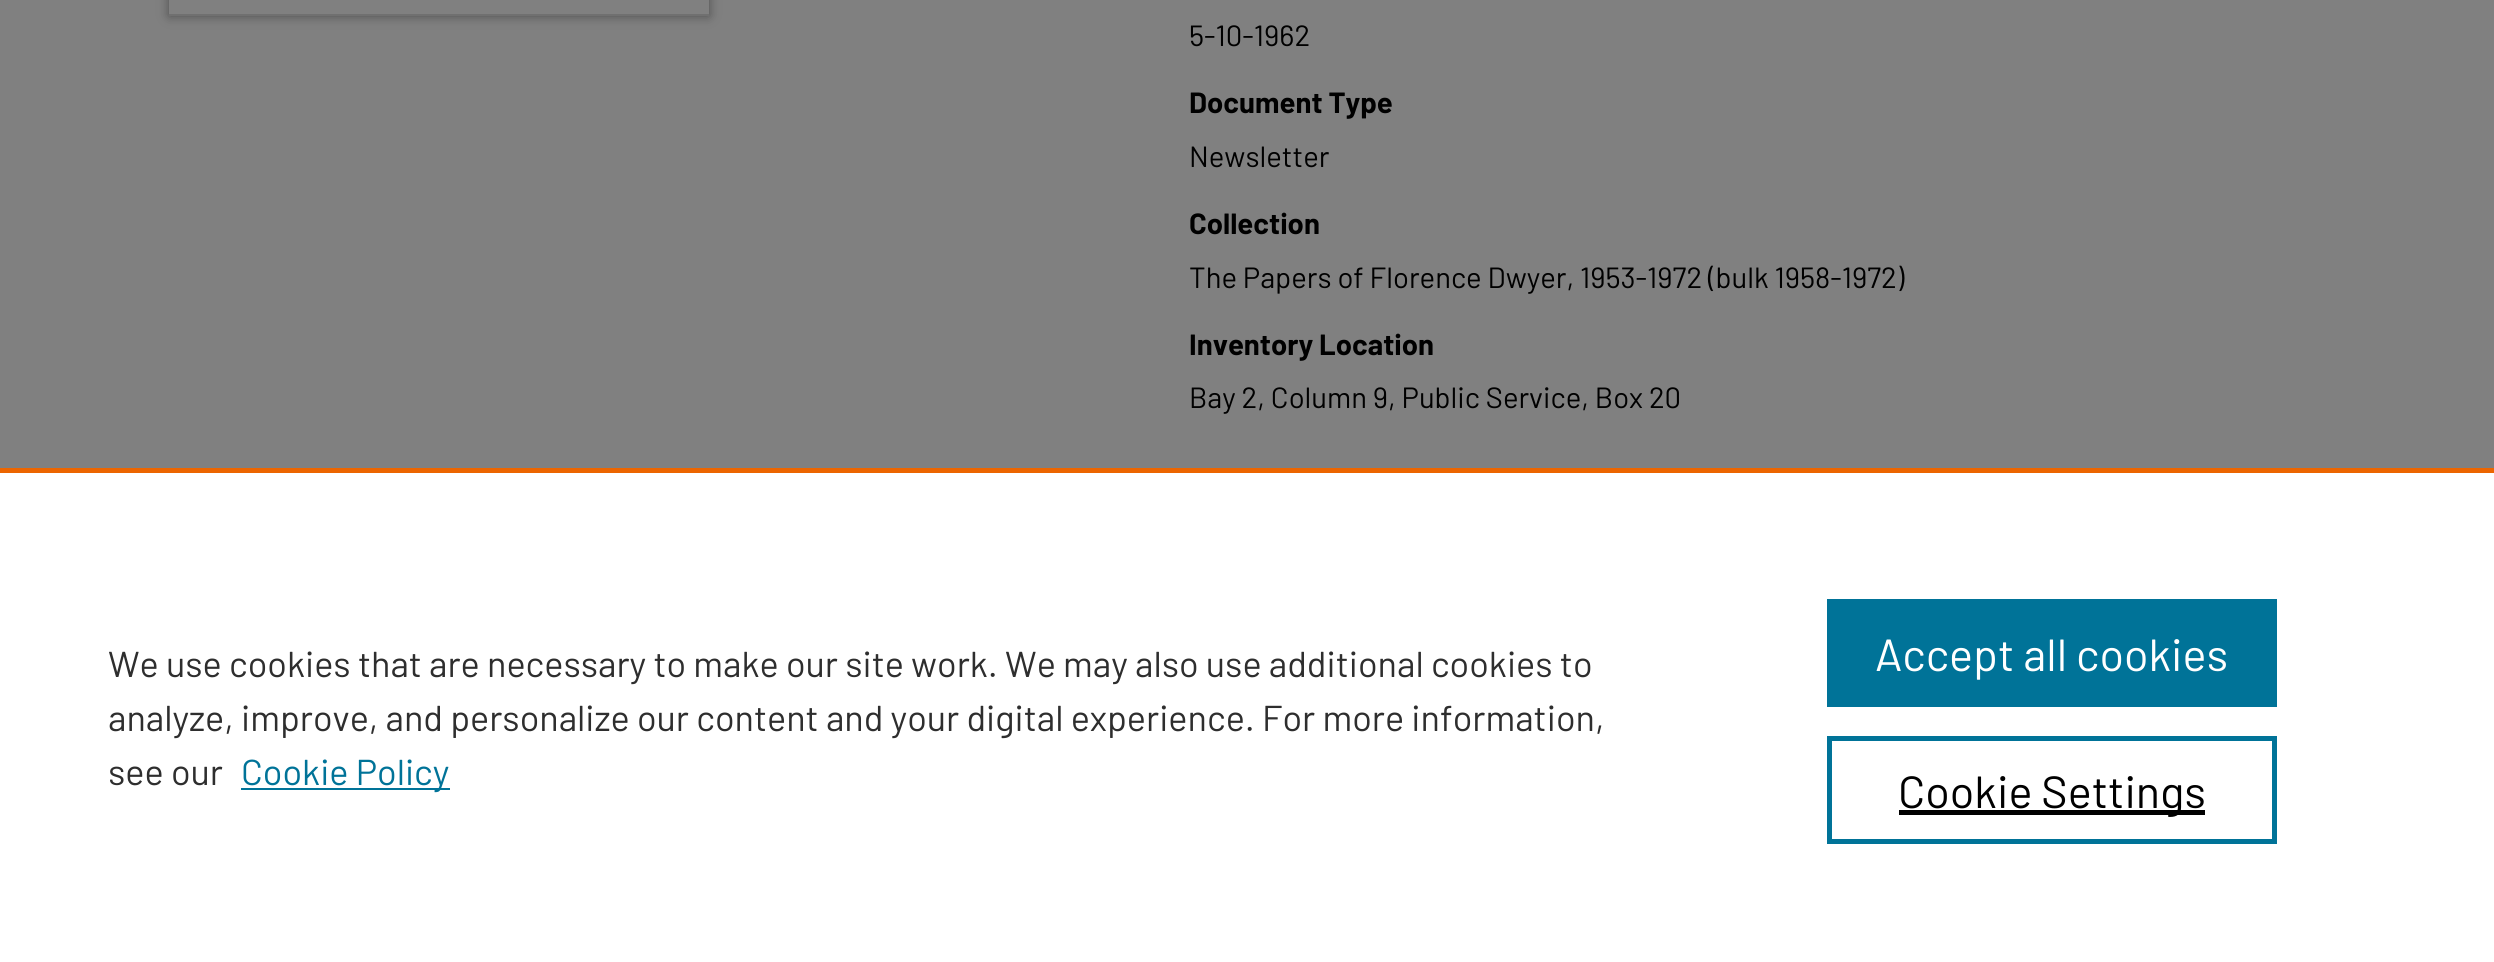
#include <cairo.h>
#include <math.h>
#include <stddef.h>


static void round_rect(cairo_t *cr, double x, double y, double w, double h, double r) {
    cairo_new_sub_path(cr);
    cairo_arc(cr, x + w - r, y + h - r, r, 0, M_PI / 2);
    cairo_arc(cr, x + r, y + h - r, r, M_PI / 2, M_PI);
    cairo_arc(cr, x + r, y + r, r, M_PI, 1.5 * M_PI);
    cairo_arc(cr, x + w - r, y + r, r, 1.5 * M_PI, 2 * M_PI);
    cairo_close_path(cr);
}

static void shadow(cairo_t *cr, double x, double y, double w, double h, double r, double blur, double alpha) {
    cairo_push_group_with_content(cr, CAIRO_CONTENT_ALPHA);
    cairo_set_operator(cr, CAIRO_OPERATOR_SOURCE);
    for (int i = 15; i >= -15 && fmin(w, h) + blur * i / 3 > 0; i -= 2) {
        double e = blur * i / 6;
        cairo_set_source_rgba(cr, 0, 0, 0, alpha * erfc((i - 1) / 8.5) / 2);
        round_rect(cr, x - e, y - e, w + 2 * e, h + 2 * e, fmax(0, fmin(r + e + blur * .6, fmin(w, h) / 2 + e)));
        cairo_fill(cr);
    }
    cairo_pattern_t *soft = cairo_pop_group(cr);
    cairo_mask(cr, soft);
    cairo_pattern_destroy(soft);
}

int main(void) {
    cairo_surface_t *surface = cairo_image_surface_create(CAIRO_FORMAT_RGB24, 2494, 962);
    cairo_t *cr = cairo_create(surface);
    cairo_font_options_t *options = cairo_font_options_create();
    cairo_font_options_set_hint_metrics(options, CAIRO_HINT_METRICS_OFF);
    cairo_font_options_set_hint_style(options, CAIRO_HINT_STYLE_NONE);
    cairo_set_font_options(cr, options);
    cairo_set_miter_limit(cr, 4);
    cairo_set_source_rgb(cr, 0.502, 0.502, 0.502);
    cairo_paint(cr);
    cairo_save(cr);
    cairo_set_fill_rule(cr, CAIRO_FILL_RULE_EVEN_ODD);
    cairo_new_path(cr);
    cairo_move_to(cr, 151, 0);
    cairo_line_to(cr, 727, 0);
    cairo_line_to(cr, 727, 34);
    cairo_line_to(cr, 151, 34);
    cairo_close_path(cr);
    cairo_move_to(cr, 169, -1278);
    cairo_line_to(cr, 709, -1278);
    cairo_line_to(cr, 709, 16);
    cairo_line_to(cr, 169, 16);
    cairo_close_path(cr);
    cairo_clip(cr);
    cairo_set_source_rgb(cr, 0, 0, 0);
    shadow(cr, 169, -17, 540, 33, 0, 5.5, 0.4);
    cairo_restore(cr);
    cairo_set_source_rgb(cr, 0.439, 0.439, 0.439);
    cairo_rectangle(cr, 169, 14, 540, 2);
    cairo_fill(cr);
    cairo_select_font_face(cr, "Barlow", CAIRO_FONT_SLANT_NORMAL, CAIRO_FONT_WEIGHT_NORMAL);
    cairo_set_font_size(cr, 29.25);
    cairo_set_source_rgb(cr, 0, 0, 0);
    cairo_move_to(cr, 1189, 46);
    cairo_show_text(cr, "5-10-1962");
    cairo_select_font_face(cr, "Barlow", CAIRO_FONT_SLANT_NORMAL, CAIRO_FONT_WEIGHT_BOLD);
    cairo_move_to(cr, 1189, 113);
    cairo_show_text(cr, "Document Type");
    cairo_select_font_face(cr, "Barlow", CAIRO_FONT_SLANT_NORMAL, CAIRO_FONT_WEIGHT_NORMAL);
    cairo_move_to(cr, 1189, 167);
    cairo_show_text(cr, "Newsletter");
    cairo_select_font_face(cr, "Barlow", CAIRO_FONT_SLANT_NORMAL, CAIRO_FONT_WEIGHT_BOLD);
    cairo_move_to(cr, 1189, 234);
    cairo_show_text(cr, "Collection");
    cairo_select_font_face(cr, "Barlow", CAIRO_FONT_SLANT_NORMAL, CAIRO_FONT_WEIGHT_NORMAL);
    cairo_move_to(cr, 1189, 288);
    cairo_show_text(cr, "The Papers of Florence Dwyer, 1953-1972 (bulk 1958-1972)");
    cairo_select_font_face(cr, "Barlow", CAIRO_FONT_SLANT_NORMAL, CAIRO_FONT_WEIGHT_BOLD);
    cairo_move_to(cr, 1189, 355);
    cairo_show_text(cr, "Inventory Location");
    cairo_select_font_face(cr, "Barlow", CAIRO_FONT_SLANT_NORMAL, CAIRO_FONT_WEIGHT_NORMAL);
    cairo_move_to(cr, 1189, 408);
    cairo_show_text(cr, "Bay 2, Column 9, Public Service, Box 20");
    cairo_set_source_rgb(cr, 1, 1, 1);
    cairo_rectangle(cr, 0, 473, 2494, 489);
    cairo_fill(cr);
    cairo_set_source_rgb(cr, 0.922, 0.396, 0);
    cairo_rectangle(cr, 0, 468, 2494, 5);
    cairo_fill(cr);
    cairo_set_font_size(cr, 36);
    cairo_set_source_rgb(cr, 0.18, 0.18, 0.18);
    cairo_move_to(cr, 108, 677);
    cairo_show_text(cr, "We use cookies that are necessary to make our site work. We may also use additional cookies to");
    cairo_move_to(cr, 108, 731);
    cairo_show_text(cr, "analyze, improve, and personalize our content and your digital experience. For more information,");
    cairo_move_to(cr, 108, 785);
    cairo_show_text(cr, "see our");
    cairo_set_source_rgb(cr, 0, 0.451, 0.596);
    cairo_rectangle(cr, 241, 788, 209, 2);
    cairo_fill(cr);
    cairo_move_to(cr, 241, 785);
    cairo_show_text(cr, "Cookie Policy");
    cairo_rectangle(cr, 1827, 599, 450, 108);
    cairo_fill(cr);
    cairo_set_font_size(cr, 45);
    cairo_set_source_rgb(cr, 1, 1, 1);
    cairo_move_to(cr, 1875, 671);
    cairo_show_text(cr, "Accept all cookies");
    cairo_rectangle(cr, 1829.5, 738.5, 445, 103);
    cairo_set_source_rgb(cr, 0, 0.451, 0.596);
    cairo_set_line_width(cr, 5);
    cairo_stroke(cr);
    cairo_set_source_rgb(cr, 0, 0, 0);
    cairo_rectangle(cr, 1899, 810, 306, 5);
    cairo_fill(cr);
    cairo_move_to(cr, 1898, 808);
    cairo_show_text(cr, "Cookie Settings");
    cairo_surface_write_to_png(surface, "page.png");
    cairo_font_options_destroy(options);
    cairo_destroy(cr);
    cairo_surface_destroy(surface);
    return 0;
}
